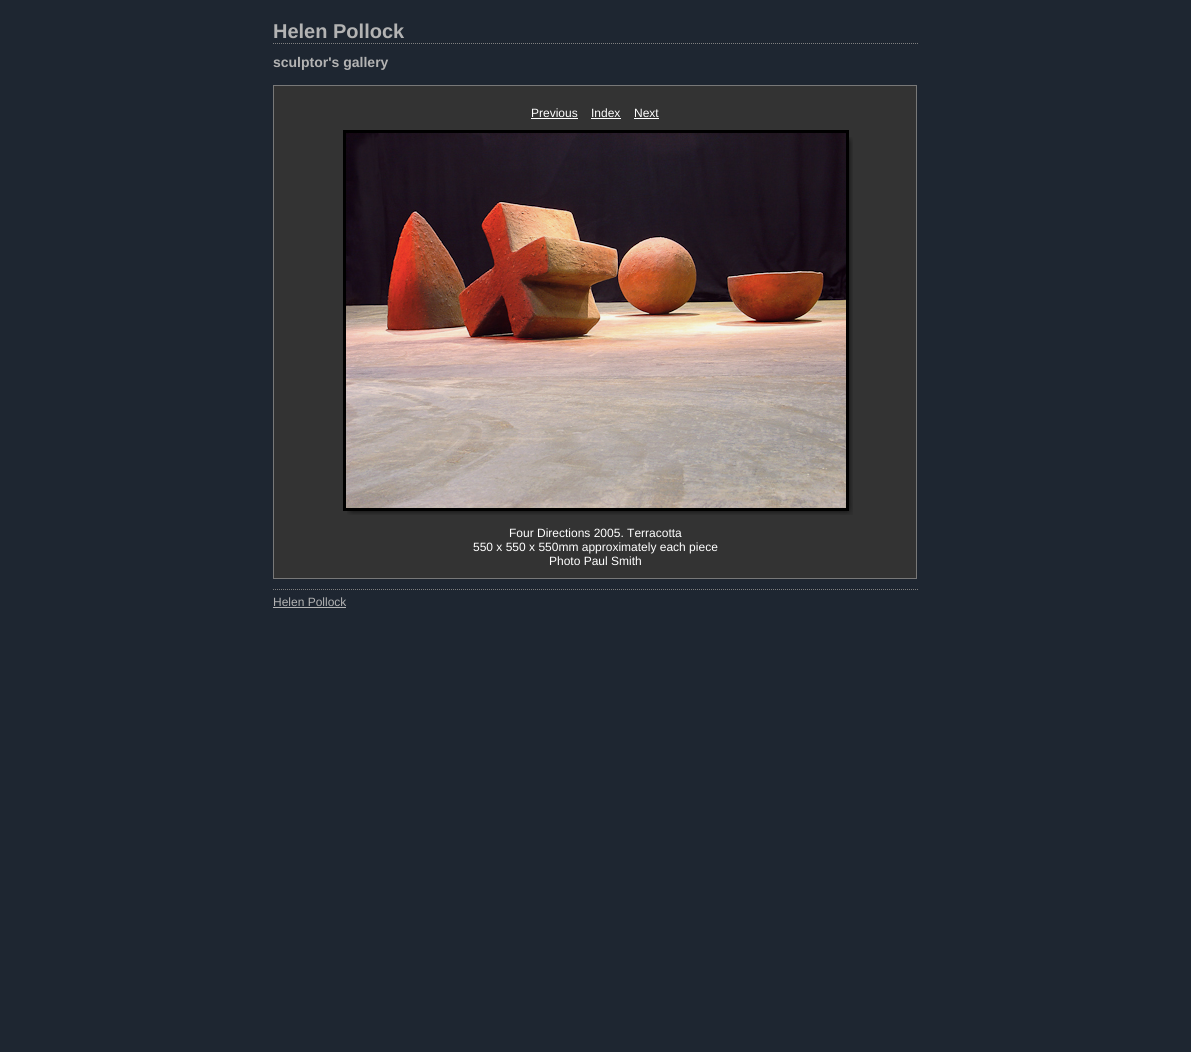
#include <cairo.h>
#include <math.h>
#include <stddef.h>


static void picture(cairo_t *cr, const char *path, double x, double y, double w, double h) {
    cairo_surface_t *image = cairo_image_surface_create_from_png(path);
    cairo_save(cr);
    cairo_set_source_surface(cr, image, x, y);
    cairo_rectangle(cr, x, y, w, h);
    cairo_fill(cr);
    cairo_restore(cr);
    cairo_surface_destroy(image);
}

int main(void) {
    cairo_surface_t *surface = cairo_image_surface_create(CAIRO_FORMAT_RGB24, 1191, 1052);
    cairo_t *cr = cairo_create(surface);
    cairo_font_options_t *options = cairo_font_options_create();
    cairo_font_options_set_hint_metrics(options, CAIRO_HINT_METRICS_OFF);
    cairo_font_options_set_hint_style(options, CAIRO_HINT_STYLE_NONE);
    cairo_set_font_options(cr, options);
    cairo_set_miter_limit(cr, 4);
    cairo_set_source_rgb(cr, 0.118, 0.149, 0.192);
    cairo_paint(cr);
    cairo_new_path(cr);
    cairo_move_to(cr, 273, 43.5);
    cairo_line_to(cr, 918, 43.5);
    cairo_set_source_rgb(cr, 0.498, 0.498, 0.498);
    cairo_set_line_width(cr, 1);
    cairo_set_dash(cr, (double[]){1, 1}, 2, 0);
    cairo_stroke(cr);
    cairo_select_font_face(cr, "Liberation Sans", CAIRO_FONT_SLANT_NORMAL, CAIRO_FONT_WEIGHT_BOLD);
    cairo_set_font_size(cr, 20);
    cairo_set_source_rgb(cr, 0.702, 0.702, 0.702);
    cairo_move_to(cr, 273, 38);
    cairo_show_text(cr, "Helen Pollock");
    cairo_set_font_size(cr, 14);
    cairo_move_to(cr, 273, 67);
    cairo_show_text(cr, "sculptor's gallery");
    cairo_new_path(cr);
    cairo_move_to(cr, 273, 589.5);
    cairo_line_to(cr, 918, 589.5);
    cairo_set_source_rgb(cr, 0.498, 0.498, 0.498);
    cairo_stroke(cr);
    cairo_set_source_rgb(cr, 0.2, 0.2, 0.2);
    cairo_rectangle(cr, 273.5, 85.5, 643, 493);
    cairo_fill_preserve(cr);
    cairo_set_source_rgb(cr, 0.471, 0.471, 0.471);
    cairo_set_dash(cr, NULL, 0, 0);
    cairo_stroke(cr);
    cairo_select_font_face(cr, "Liberation Sans", CAIRO_FONT_SLANT_NORMAL, CAIRO_FONT_WEIGHT_NORMAL);
    cairo_set_font_size(cr, 12);
    cairo_set_source_rgb(cr, 1, 1, 1);
    cairo_move_to(cr, 531, 117);
    cairo_show_text(cr, "Previous");
    cairo_rectangle(cr, 531, 118, 47, 1);
    cairo_fill(cr);
    cairo_move_to(cr, 591, 117);
    cairo_show_text(cr, "Index");
    cairo_rectangle(cr, 591, 118, 30, 1);
    cairo_fill(cr);
    cairo_move_to(cr, 634, 117);
    cairo_show_text(cr, "Next");
    cairo_rectangle(cr, 634, 118, 25, 1);
    cairo_fill(cr);
    picture(cr, "img1.png", 353, 143, 500, 372);
    cairo_rectangle(cr, 344.5, 131.5, 503, 378);
    cairo_set_source_rgb(cr, 0, 0, 0);
    cairo_set_line_width(cr, 3);
    cairo_stroke(cr);
    picture(cr, "img2.png", 346, 133, 500, 375);
    picture(cr, "img3.png", 849, 137, 4, 6);
    picture(cr, "img4.png", 347, 511, 6, 4);
    cairo_set_source_rgb(cr, 1, 1, 1);
    cairo_move_to(cr, 509, 537);
    cairo_show_text(cr, "Four Directions 2005. Terracotta");
    cairo_move_to(cr, 473, 551);
    cairo_show_text(cr, "550 x 550 x 550mm approximately each piece");
    cairo_move_to(cr, 549, 565);
    cairo_show_text(cr, "Photo Paul Smith");
    cairo_set_source_rgb(cr, 0.702, 0.702, 0.702);
    cairo_move_to(cr, 273, 606);
    cairo_show_text(cr, "Helen Pollock");
    cairo_rectangle(cr, 273, 607, 73, 1);
    cairo_fill(cr);
    cairo_surface_write_to_png(surface, "page.png");
    cairo_font_options_destroy(options);
    cairo_destroy(cr);
    cairo_surface_destroy(surface);
    return 0;
}
